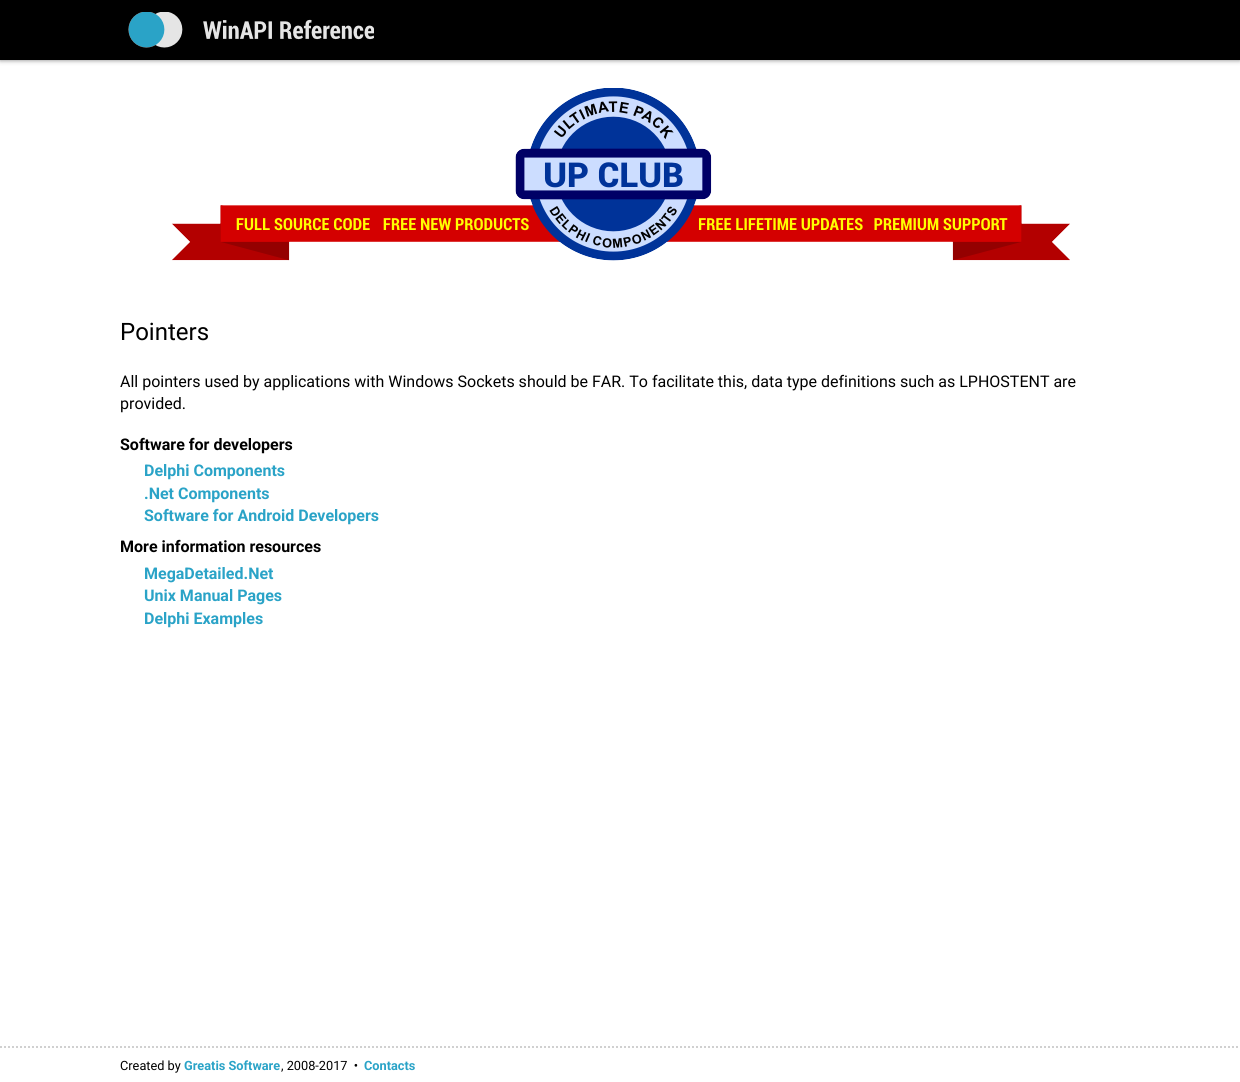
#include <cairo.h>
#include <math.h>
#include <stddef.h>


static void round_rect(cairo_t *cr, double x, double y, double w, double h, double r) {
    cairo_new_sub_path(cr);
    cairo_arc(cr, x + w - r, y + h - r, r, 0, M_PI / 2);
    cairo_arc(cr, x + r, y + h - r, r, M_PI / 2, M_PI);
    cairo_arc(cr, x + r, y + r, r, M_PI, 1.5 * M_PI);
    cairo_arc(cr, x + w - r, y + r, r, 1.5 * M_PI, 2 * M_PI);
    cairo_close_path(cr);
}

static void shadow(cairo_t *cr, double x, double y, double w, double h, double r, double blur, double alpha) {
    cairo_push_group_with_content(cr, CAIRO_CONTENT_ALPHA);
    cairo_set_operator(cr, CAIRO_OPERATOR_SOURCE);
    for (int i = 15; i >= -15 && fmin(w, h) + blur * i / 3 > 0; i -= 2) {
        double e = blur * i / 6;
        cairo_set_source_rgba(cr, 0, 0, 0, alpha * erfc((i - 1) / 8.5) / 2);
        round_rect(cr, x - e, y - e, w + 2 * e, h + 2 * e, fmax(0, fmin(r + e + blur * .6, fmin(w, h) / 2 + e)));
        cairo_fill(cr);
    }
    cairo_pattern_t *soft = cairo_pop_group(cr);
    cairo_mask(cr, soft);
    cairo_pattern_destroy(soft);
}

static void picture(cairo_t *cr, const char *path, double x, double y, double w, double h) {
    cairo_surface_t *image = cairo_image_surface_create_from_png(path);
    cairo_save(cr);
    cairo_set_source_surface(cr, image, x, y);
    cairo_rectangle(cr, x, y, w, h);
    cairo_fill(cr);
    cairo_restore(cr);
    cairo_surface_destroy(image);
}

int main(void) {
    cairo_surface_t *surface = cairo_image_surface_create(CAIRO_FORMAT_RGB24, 1240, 1082);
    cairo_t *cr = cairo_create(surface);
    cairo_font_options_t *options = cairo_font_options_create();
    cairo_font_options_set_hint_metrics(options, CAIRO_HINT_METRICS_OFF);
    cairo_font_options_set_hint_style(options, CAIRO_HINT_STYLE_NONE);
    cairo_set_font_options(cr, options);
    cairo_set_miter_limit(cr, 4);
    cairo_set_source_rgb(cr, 1, 1, 1);
    cairo_paint(cr);
    cairo_set_source_rgb(cr, 0, 0, 0);
    shadow(cr, 0, 0, 1240, 60, 0, 2.5, 0.5);
    cairo_set_source_rgb(cr, 0, 0, 0);
    cairo_rectangle(cr, 0, 0, 1240, 60);
    cairo_fill(cr);
    picture(cr, "img1.png", 128, 12, 246, 36);
    picture(cr, "img2.png", 171, 88, 899, 173);
    cairo_select_font_face(cr, "Roboto", CAIRO_FONT_SLANT_NORMAL, CAIRO_FONT_WEIGHT_NORMAL);
    cairo_set_font_size(cr, 24);
    cairo_move_to(cr, 120, 340);
    cairo_show_text(cr, "Pointers");
    cairo_set_font_size(cr, 16);
    cairo_move_to(cr, 120, 387);
    cairo_show_text(cr, "All pointers used by applications with Windows Sockets should be FAR. To facilitate this, data type definitions such as LPHOSTENT are");
    cairo_move_to(cr, 120, 409);
    cairo_show_text(cr, "provided.");
    cairo_select_font_face(cr, "Roboto", CAIRO_FONT_SLANT_NORMAL, CAIRO_FONT_WEIGHT_BOLD);
    cairo_move_to(cr, 120, 450);
    cairo_show_text(cr, "Software for developers");
    cairo_set_source_rgb(cr, 0.165, 0.639, 0.78);
    cairo_move_to(cr, 144, 476);
    cairo_show_text(cr, "Delphi Components");
    cairo_move_to(cr, 144, 499);
    cairo_show_text(cr, ".Net Components");
    cairo_move_to(cr, 144, 521);
    cairo_show_text(cr, "Software for Android Developers");
    cairo_set_source_rgb(cr, 0, 0, 0);
    cairo_move_to(cr, 120, 552);
    cairo_show_text(cr, "More information resources");
    cairo_set_source_rgb(cr, 0.165, 0.639, 0.78);
    cairo_move_to(cr, 144, 579);
    cairo_show_text(cr, "MegaDetailed.Net");
    cairo_move_to(cr, 144, 601);
    cairo_show_text(cr, "Unix Manual Pages");
    cairo_move_to(cr, 144, 624);
    cairo_show_text(cr, "Delphi Examples");
    cairo_new_path(cr);
    cairo_move_to(cr, 0, 1047);
    cairo_line_to(cr, 1240, 1047);
    cairo_set_source_rgb(cr, 0.816, 0.816, 0.816);
    cairo_set_dash(cr, (double[]){2, 2}, 2, 0);
    cairo_stroke(cr);
    cairo_select_font_face(cr, "Roboto", CAIRO_FONT_SLANT_NORMAL, CAIRO_FONT_WEIGHT_NORMAL);
    cairo_set_font_size(cr, 12.75);
    cairo_set_source_rgb(cr, 0, 0, 0);
    cairo_move_to(cr, 120, 1070);
    cairo_show_text(cr, "Created by");
    cairo_select_font_face(cr, "Roboto", CAIRO_FONT_SLANT_NORMAL, CAIRO_FONT_WEIGHT_BOLD);
    cairo_set_source_rgb(cr, 0.165, 0.639, 0.78);
    cairo_move_to(cr, 184, 1070);
    cairo_show_text(cr, "Greatis Software");
    cairo_select_font_face(cr, "Roboto", CAIRO_FONT_SLANT_NORMAL, CAIRO_FONT_WEIGHT_NORMAL);
    cairo_set_source_rgb(cr, 0, 0, 0);
    cairo_move_to(cr, 281, 1070);
    cairo_show_text(cr, ", 2008-2017  •");
    cairo_select_font_face(cr, "Roboto", CAIRO_FONT_SLANT_NORMAL, CAIRO_FONT_WEIGHT_BOLD);
    cairo_set_source_rgb(cr, 0.165, 0.639, 0.78);
    cairo_move_to(cr, 364, 1070);
    cairo_show_text(cr, "Contacts");
    cairo_surface_write_to_png(surface, "page.png");
    cairo_font_options_destroy(options);
    cairo_destroy(cr);
    cairo_surface_destroy(surface);
    return 0;
}
